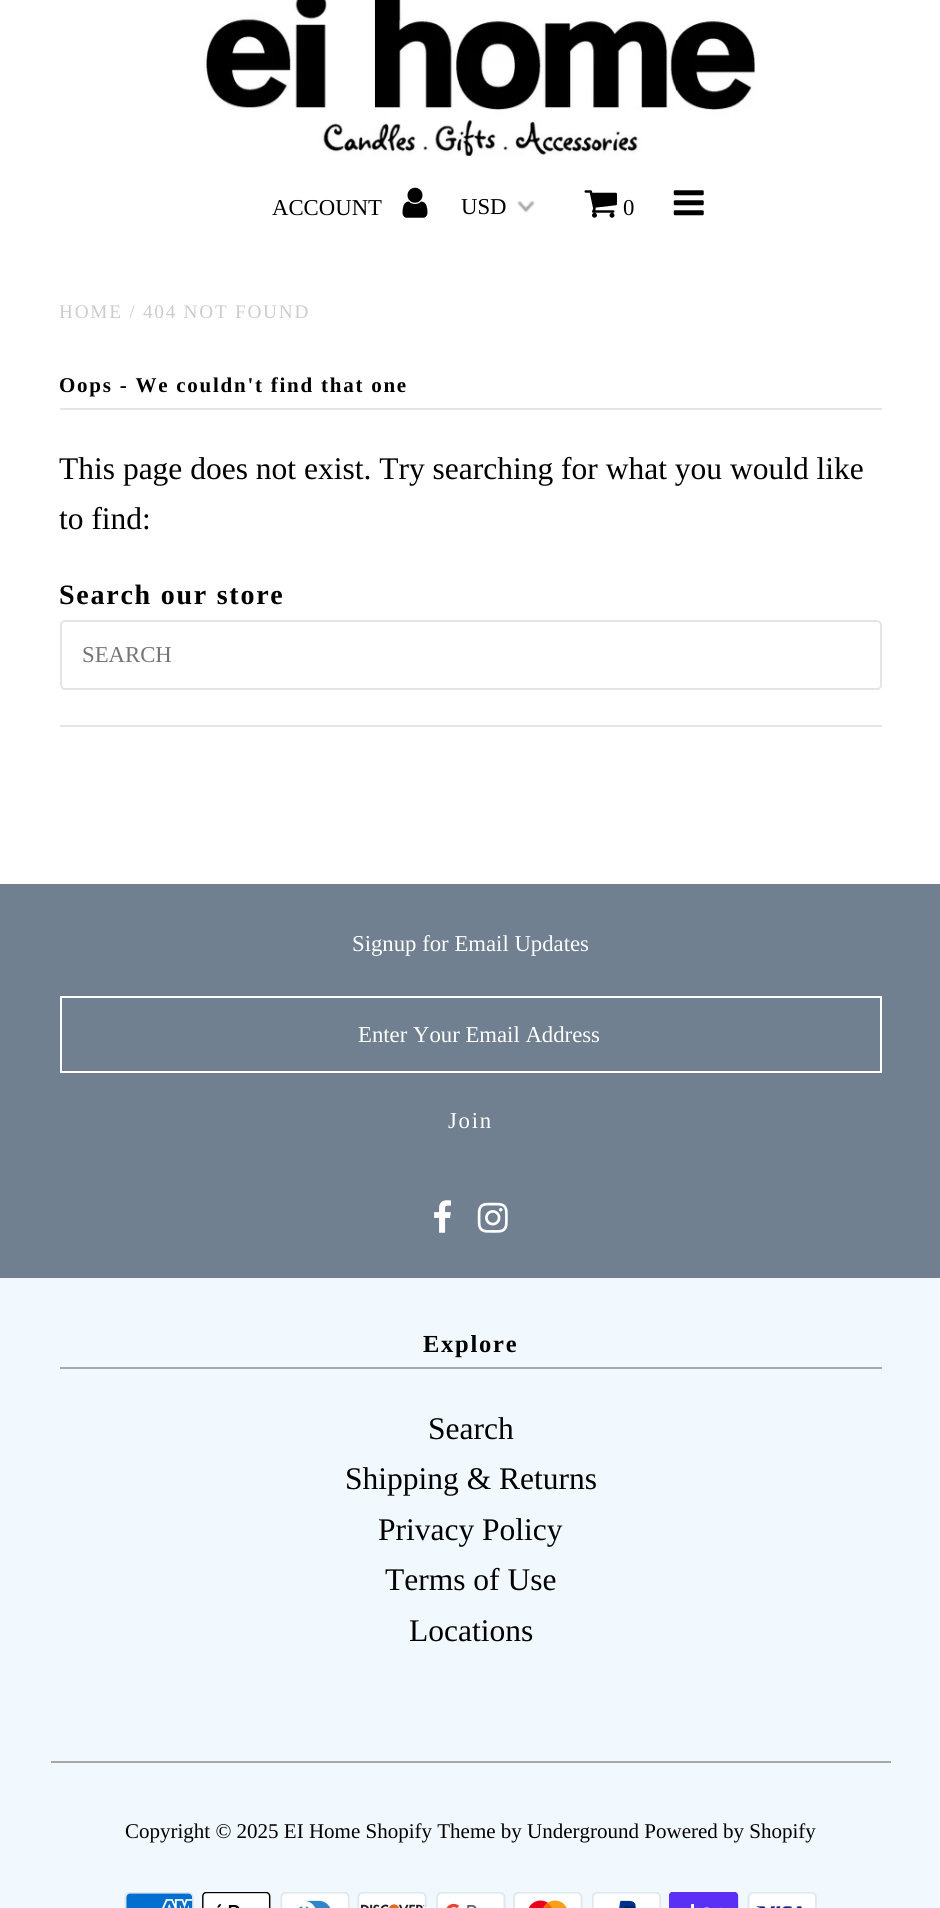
#include <cairo.h>
#include <math.h>
#include <stddef.h>


static void spaced_text(cairo_t *cr, double x, double y, const char *s, double letter, double word) {
    cairo_move_to(cr, x, y);
    while (*s) {
        char ch[5] = {0};
        int n = 0;
        do ch[n++] = *s++; while ((*s & 0xC0) == 0x80);
        cairo_show_text(cr, ch);
        cairo_rel_move_to(cr, letter + word * (*ch == ' '), 0);
    }
}

static void round_rect(cairo_t *cr, double x, double y, double w, double h, double r) {
    cairo_new_sub_path(cr);
    cairo_arc(cr, x + w - r, y + h - r, r, 0, M_PI / 2);
    cairo_arc(cr, x + r, y + h - r, r, M_PI / 2, M_PI);
    cairo_arc(cr, x + r, y + r, r, M_PI, 1.5 * M_PI);
    cairo_arc(cr, x + w - r, y + r, r, 1.5 * M_PI, 2 * M_PI);
    cairo_close_path(cr);
}

static void picture(cairo_t *cr, const char *path, double x, double y, double w, double h) {
    cairo_surface_t *image = cairo_image_surface_create_from_png(path);
    cairo_save(cr);
    cairo_set_source_surface(cr, image, x, y);
    cairo_rectangle(cr, x, y, w, h);
    cairo_fill(cr);
    cairo_restore(cr);
    cairo_surface_destroy(image);
}

int main(void) {
    cairo_surface_t *surface = cairo_image_surface_create(CAIRO_FORMAT_RGB24, 940, 1908);
    cairo_t *cr = cairo_create(surface);
    cairo_font_options_t *options = cairo_font_options_create();
    cairo_font_options_set_hint_metrics(options, CAIRO_HINT_METRICS_OFF);
    cairo_font_options_set_hint_style(options, CAIRO_HINT_STYLE_NONE);
    cairo_set_font_options(cr, options);
    cairo_set_miter_limit(cr, 4);
    cairo_set_source_rgb(cr, 1, 1, 1);
    cairo_paint(cr);
    picture(cr, "img1.png", 203, 0, 553, 156);
    cairo_select_font_face(cr, "Liberation Serif", CAIRO_FONT_SLANT_NORMAL, CAIRO_FONT_WEIGHT_NORMAL);
    cairo_set_font_size(cr, 22.75);
    cairo_set_source_rgb(cr, 0, 0, 0);
    cairo_move_to(cr, 272, 215);
    cairo_show_text(cr, "ACCOUNT");
    picture(cr, "img2.png", 402, 187, 26, 31);
    picture(cr, "img3.png", 517, 201, 18, 12);
    cairo_move_to(cr, 461, 214);
    cairo_show_text(cr, "USD");
    picture(cr, "img4.png", 584, 190, 33, 28);
    cairo_move_to(cr, 623, 215);
    cairo_show_text(cr, "0");
    picture(cr, "img5.png", 673, 190, 31, 26);
    cairo_set_font_size(cr, 19.25);
    cairo_set_source_rgb(cr, 0.8, 0.8, 0.8);
    spaced_text(cr, 59, 318, "HOME / 404 NOT FOUND", 1.75, 0);
    cairo_set_source_rgb(cr, 0.898, 0.898, 0.898);
    cairo_rectangle(cr, 60, 408, 822, 2);
    cairo_fill(cr);
    cairo_select_font_face(cr, "Liberation Serif", CAIRO_FONT_SLANT_NORMAL, CAIRO_FONT_WEIGHT_BOLD);
    cairo_set_font_size(cr, 21);
    cairo_set_source_rgb(cr, 0, 0, 0);
    spaced_text(cr, 59, 392, "Oops - We couldn't find that one", 1.75, 0);
    cairo_select_font_face(cr, "Liberation Serif", CAIRO_FONT_SLANT_NORMAL, CAIRO_FONT_WEIGHT_NORMAL);
    cairo_set_font_size(cr, 31.5);
    cairo_move_to(cr, 59, 479);
    cairo_show_text(cr, "This page does not exist. Try searching for what you would like");
    cairo_move_to(cr, 59, 529);
    cairo_show_text(cr, "to find:");
    cairo_set_source_rgb(cr, 0.898, 0.898, 0.898);
    cairo_rectangle(cr, 60, 725, 822, 2);
    cairo_fill(cr);
    cairo_select_font_face(cr, "Liberation Serif", CAIRO_FONT_SLANT_NORMAL, CAIRO_FONT_WEIGHT_BOLD);
    cairo_set_font_size(cr, 28);
    cairo_set_source_rgb(cr, 0, 0, 0);
    spaced_text(cr, 59, 604, "Search our store", 1.75, 0);
    round_rect(cr, 61, 621, 820, 68, 4);
    cairo_set_source_rgb(cr, 0.898, 0.898, 0.898);
    cairo_stroke(cr);
    cairo_select_font_face(cr, "Liberation Serif", CAIRO_FONT_SLANT_NORMAL, CAIRO_FONT_WEIGHT_NORMAL);
    cairo_set_font_size(cr, 22.75);
    cairo_set_source_rgb(cr, 0.459, 0.459, 0.459);
    cairo_move_to(cr, 82, 662);
    cairo_show_text(cr, "SEARCH");
    cairo_set_source_rgb(cr, 0.439, 0.502, 0.565);
    cairo_rectangle(cr, 0, 884, 940, 394);
    cairo_fill(cr);
    cairo_set_source_rgb(cr, 1, 1, 1);
    cairo_move_to(cr, 352, 951);
    cairo_show_text(cr, "Signup for Email Updates");
    cairo_rectangle(cr, 61, 997, 820, 75);
    cairo_stroke(cr);
    cairo_move_to(cr, 358, 1042);
    cairo_show_text(cr, "Enter Your Email Address");
    spaced_text(cr, 448, 1128, "Join", 1.75, 0);
    picture(cr, "img6.png", 434, 1200, 17, 33);
    picture(cr, "img7.png", 477, 1202, 31, 31);
    cairo_set_source_rgb(cr, 0.945, 0.973, 1);
    cairo_rectangle(cr, 0, 1278, 940, 630);
    cairo_fill(cr);
    cairo_set_source_rgb(cr, 0.659, 0.659, 0.659);
    cairo_rectangle(cr, 60, 1367, 822, 2);
    cairo_fill(cr);
    cairo_select_font_face(cr, "Liberation Serif", CAIRO_FONT_SLANT_NORMAL, CAIRO_FONT_WEIGHT_BOLD);
    cairo_set_font_size(cr, 24.5);
    cairo_set_source_rgb(cr, 0, 0, 0);
    spaced_text(cr, 423, 1352, "Explore", 1.75, 0);
    cairo_select_font_face(cr, "Liberation Serif", CAIRO_FONT_SLANT_NORMAL, CAIRO_FONT_WEIGHT_NORMAL);
    cairo_set_font_size(cr, 31.5);
    cairo_move_to(cr, 428, 1439);
    cairo_show_text(cr, "Search");
    cairo_move_to(cr, 345, 1489);
    cairo_show_text(cr, "Shipping & Returns");
    cairo_move_to(cr, 378, 1540);
    cairo_show_text(cr, "Privacy Policy");
    cairo_move_to(cr, 385, 1590);
    cairo_show_text(cr, "Terms of Use");
    cairo_move_to(cr, 409, 1641);
    cairo_show_text(cr, "Locations");
    cairo_set_source_rgb(cr, 0.659, 0.659, 0.659);
    cairo_rectangle(cr, 51, 1761, 840, 2);
    cairo_fill(cr);
    cairo_set_font_size(cr, 21);
    cairo_set_source_rgb(cr, 0, 0, 0);
    cairo_move_to(cr, 125, 1838);
    cairo_show_text(cr, "Copyright © 2025 EI Home Shopify Theme by Underground Powered by Shopify");
    picture(cr, "img8.png", 124, 1892, 70, 16);
    picture(cr, "img9.png", 202, 1892, 69, 16);
    picture(cr, "img10.png", 280, 1892, 70, 16);
    picture(cr, "img11.png", 357, 1892, 70, 16);
    picture(cr, "img12.png", 436, 1892, 70, 16);
    picture(cr, "img13.png", 513, 1892, 70, 16);
    picture(cr, "img14.png", 592, 1892, 69, 16);
    picture(cr, "img15.png", 669, 1892, 70, 16);
    picture(cr, "img16.png", 747, 1892, 70, 16);
    cairo_surface_write_to_png(surface, "page.png");
    cairo_font_options_destroy(options);
    cairo_destroy(cr);
    cairo_surface_destroy(surface);
    return 0;
}
